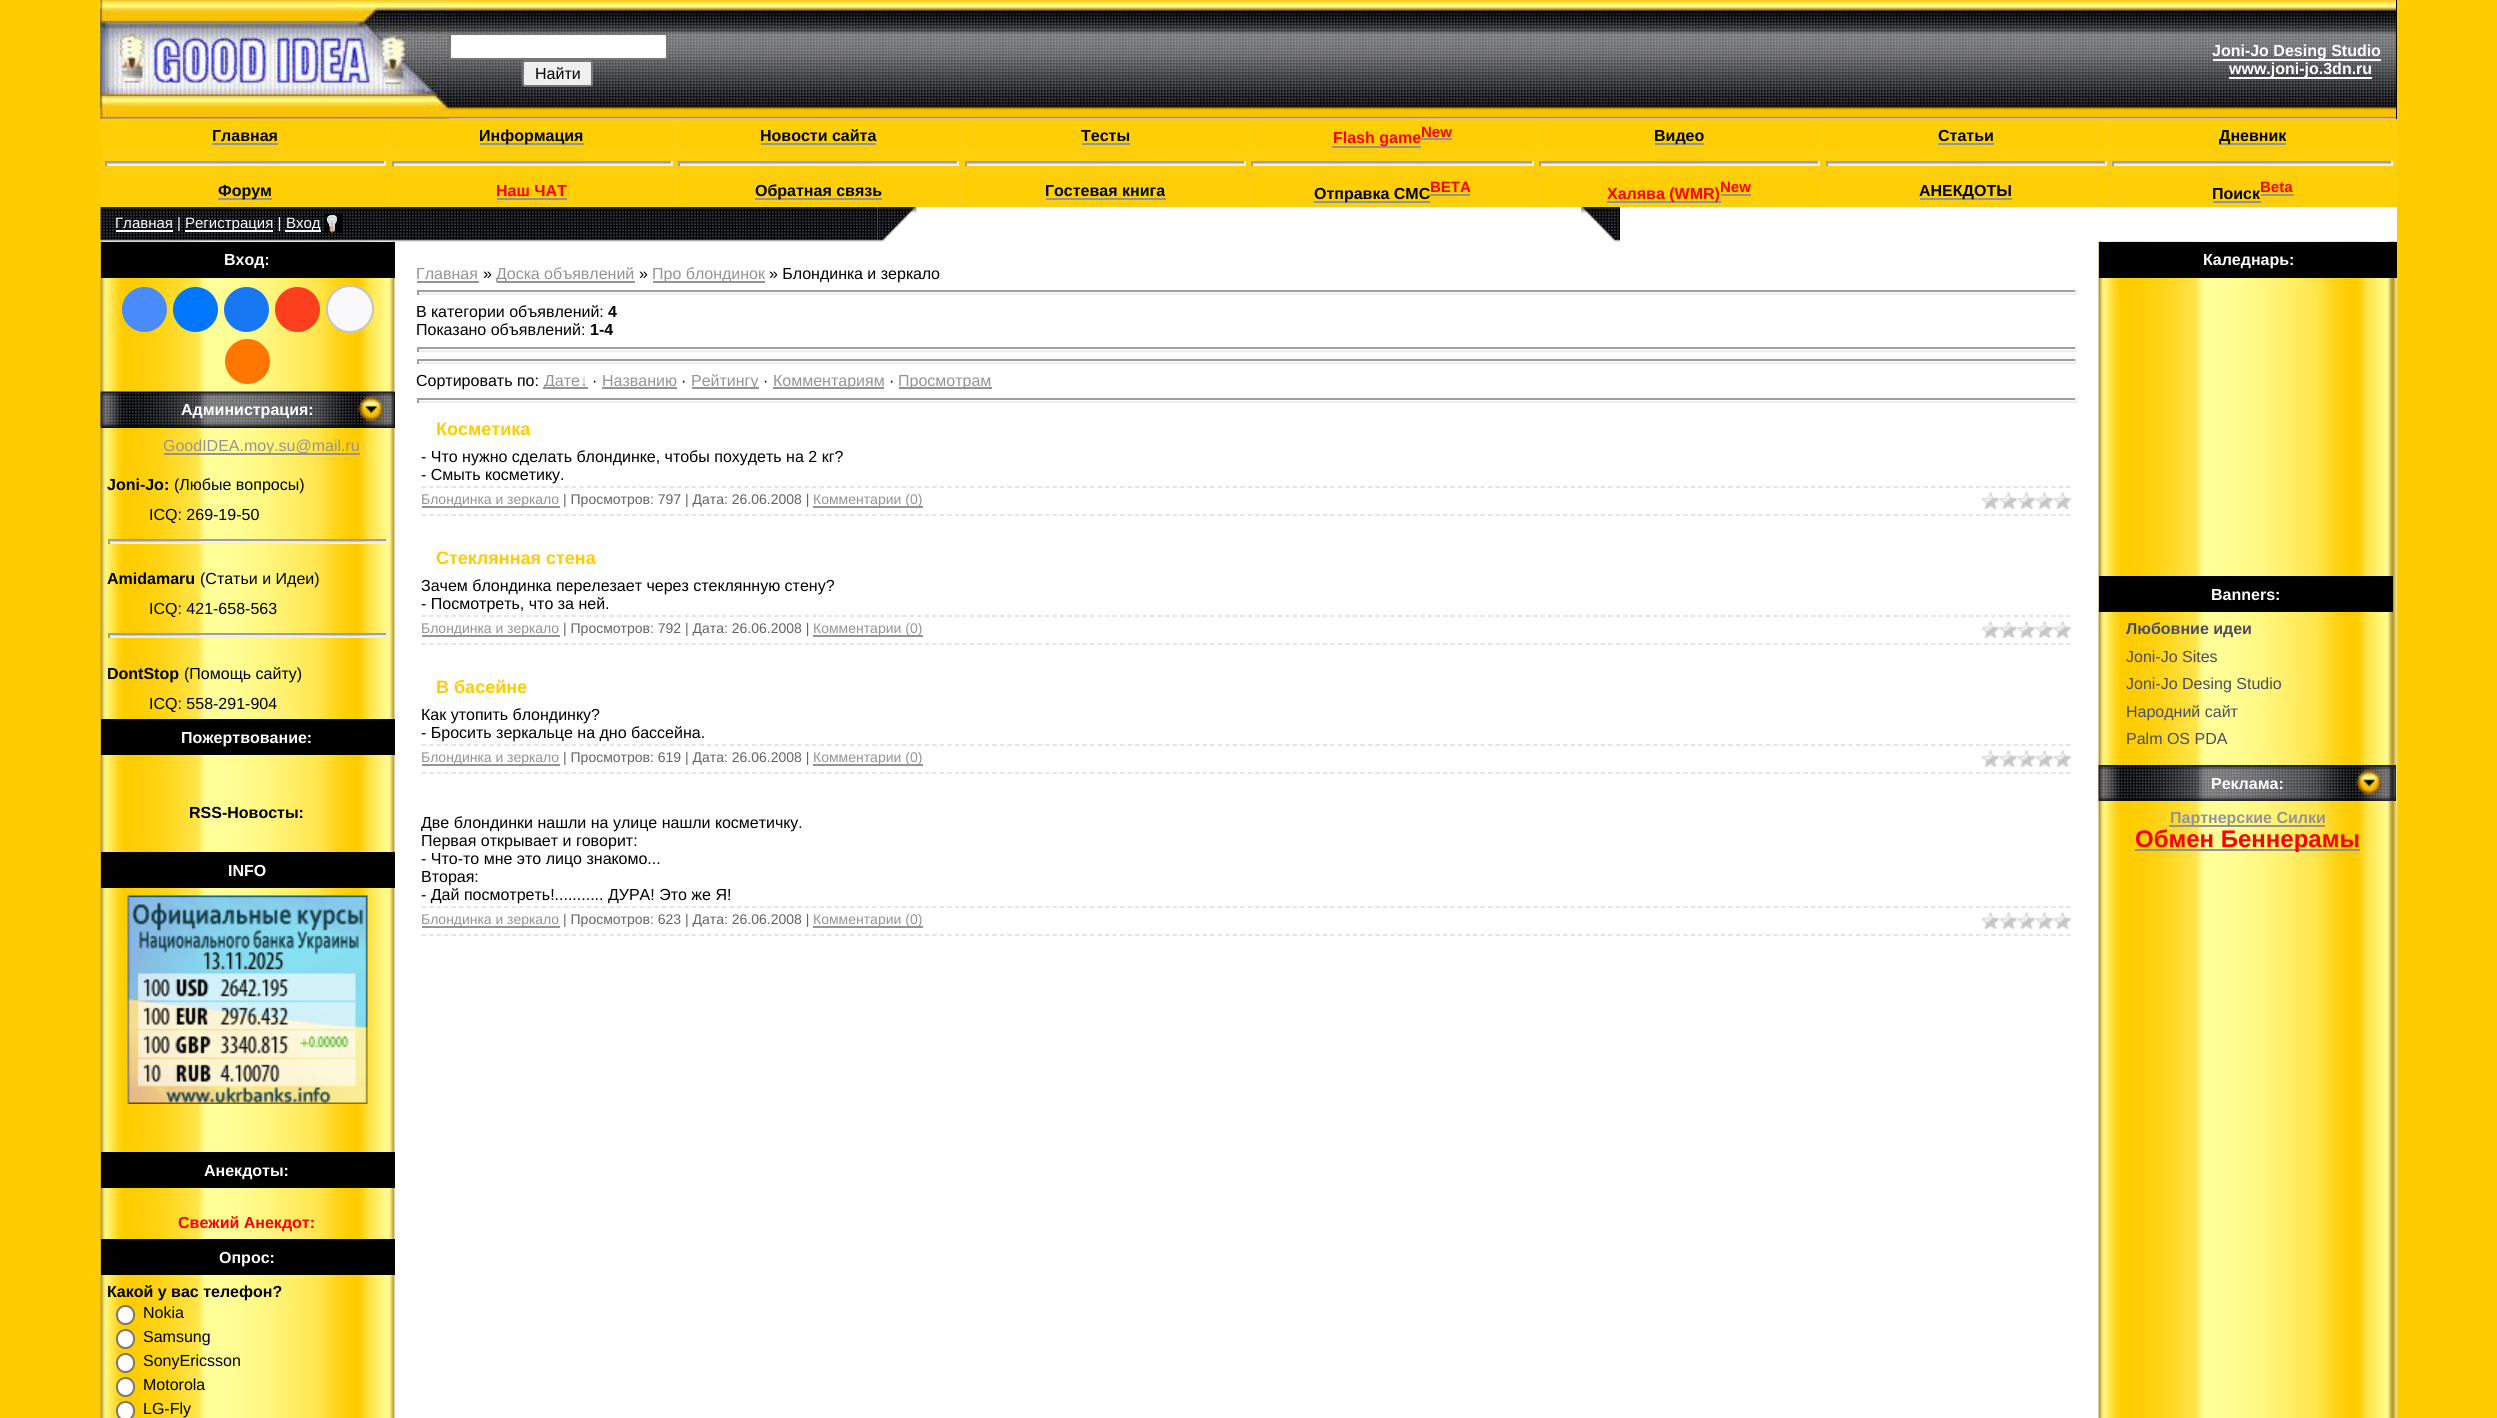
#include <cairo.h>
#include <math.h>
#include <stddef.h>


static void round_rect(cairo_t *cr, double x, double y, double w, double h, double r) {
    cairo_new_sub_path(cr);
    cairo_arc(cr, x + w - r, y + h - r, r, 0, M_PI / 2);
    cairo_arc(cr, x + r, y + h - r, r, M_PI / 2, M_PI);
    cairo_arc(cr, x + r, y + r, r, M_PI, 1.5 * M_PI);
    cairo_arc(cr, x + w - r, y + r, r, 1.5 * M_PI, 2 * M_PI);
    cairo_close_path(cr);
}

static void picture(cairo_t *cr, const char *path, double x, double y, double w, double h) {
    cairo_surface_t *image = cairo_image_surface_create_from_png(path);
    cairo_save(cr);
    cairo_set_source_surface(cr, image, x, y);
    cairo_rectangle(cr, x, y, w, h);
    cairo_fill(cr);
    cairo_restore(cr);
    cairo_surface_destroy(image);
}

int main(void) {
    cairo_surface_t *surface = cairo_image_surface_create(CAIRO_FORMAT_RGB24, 2497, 1418);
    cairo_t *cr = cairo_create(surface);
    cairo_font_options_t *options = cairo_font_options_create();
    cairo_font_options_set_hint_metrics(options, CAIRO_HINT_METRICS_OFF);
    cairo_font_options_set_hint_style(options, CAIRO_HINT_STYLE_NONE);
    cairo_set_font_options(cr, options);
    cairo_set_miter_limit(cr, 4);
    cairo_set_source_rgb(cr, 1, 1, 1);
    cairo_paint(cr);
    cairo_set_source_rgb(cr, 1, 0.8, 0);
    cairo_rectangle(cr, 0, 0, 101, 1418);
    cairo_fill(cr);
    picture(cr, "img1.png", 100, 0, 2296, 119);
    cairo_set_source_rgb(cr, 0, 0, 0);
    cairo_rectangle(cr, 2396, 0, 1, 119);
    cairo_fill(cr);
    picture(cr, "img2.png", 100, 0, 349, 119);
    cairo_set_source_rgb(cr, 1, 1, 1);
    round_rect(cr, 450, 34, 217, 25, 2);
    cairo_fill_preserve(cr);
    cairo_set_source_rgb(cr, 0.463, 0.463, 0.463);
    cairo_stroke(cr);
    cairo_set_source_rgb(cr, 0.937, 0.937, 0.937);
    round_rect(cr, 523, 61, 69, 25, 2);
    cairo_fill_preserve(cr);
    cairo_set_source_rgb(cr, 0.463, 0.463, 0.463);
    cairo_stroke(cr);
    cairo_select_font_face(cr, "Liberation Sans", CAIRO_FONT_SLANT_NORMAL, CAIRO_FONT_WEIGHT_NORMAL);
    cairo_set_font_size(cr, 16);
    cairo_set_source_rgb(cr, 0, 0, 0);
    cairo_move_to(cr, 535, 79);
    cairo_show_text(cr, "Найти");
    cairo_set_source_rgb(cr, 1, 1, 1);
    cairo_rectangle(cr, 2213, 59, 168, 2);
    cairo_fill(cr);
    cairo_select_font_face(cr, "Liberation Sans", CAIRO_FONT_SLANT_NORMAL, CAIRO_FONT_WEIGHT_BOLD);
    cairo_move_to(cr, 2212, 56);
    cairo_show_text(cr, "Joni-Jo Desing Studio");
    cairo_rectangle(cr, 2229, 77, 143, 2);
    cairo_fill(cr);
    cairo_move_to(cr, 2229, 74);
    cairo_show_text(cr, "www.joni-jo.3dn.ru");
    cairo_set_source_rgb(cr, 0.996, 0.812, 0.051);
    cairo_rectangle(cr, 101, 119, 2296, 88);
    cairo_fill(cr);
    cairo_set_source_rgb(cr, 1, 0.808, 0.02);
    cairo_rectangle(cr, 104, 122, 283, 27);
    cairo_fill(cr);
    cairo_set_source_rgb(cr, 0, 0, 0);
    cairo_move_to(cr, 212, 141);
    cairo_show_text(cr, "Главная");
    cairo_set_source_rgb(cr, 0.584, 0.576, 0.576);
    cairo_rectangle(cr, 212, 143, 66, 2);
    cairo_fill(cr);
    cairo_set_source_rgb(cr, 1, 0.808, 0.02);
    cairo_rectangle(cr, 390, 122, 284, 27);
    cairo_fill(cr);
    cairo_set_source_rgb(cr, 0.584, 0.576, 0.576);
    cairo_rectangle(cr, 480, 143, 104, 2);
    cairo_fill(cr);
    cairo_set_source_rgb(cr, 0, 0, 0);
    cairo_move_to(cr, 479, 141);
    cairo_show_text(cr, "Информация");
    cairo_set_source_rgb(cr, 1, 0.808, 0.02);
    cairo_rectangle(cr, 677, 122, 283, 27);
    cairo_fill(cr);
    cairo_set_source_rgb(cr, 0, 0, 0);
    cairo_move_to(cr, 760, 141);
    cairo_show_text(cr, "Новости сайта");
    cairo_set_source_rgb(cr, 0.584, 0.576, 0.576);
    cairo_rectangle(cr, 761, 143, 115, 2);
    cairo_fill(cr);
    cairo_set_source_rgb(cr, 1, 0.808, 0.02);
    cairo_rectangle(cr, 963, 122, 284, 27);
    cairo_fill(cr);
    cairo_set_source_rgb(cr, 0, 0, 0);
    cairo_move_to(cr, 1081, 141);
    cairo_show_text(cr, "Тесты");
    cairo_set_source_rgb(cr, 0.584, 0.576, 0.576);
    cairo_rectangle(cr, 1082, 143, 48, 2);
    cairo_fill(cr);
    cairo_set_source_rgb(cr, 1, 0.808, 0.02);
    cairo_rectangle(cr, 1250, 122, 285, 27);
    cairo_fill(cr);
    cairo_set_source_rgb(cr, 0.584, 0.576, 0.576);
    cairo_rectangle(cr, 1332, 146, 89, 2);
    cairo_fill(cr);
    cairo_set_source_rgb(cr, 1, 0, 0);
    cairo_move_to(cr, 1333, 143);
    cairo_show_text(cr, "Flash game");
    cairo_set_source_rgb(cr, 0.584, 0.576, 0.576);
    cairo_rectangle(cr, 1421, 138, 31, 2);
    cairo_fill(cr);
    cairo_set_font_size(cr, 15);
    cairo_set_source_rgb(cr, 1, 0, 0);
    cairo_move_to(cr, 1421, 137);
    cairo_show_text(cr, "New");
    cairo_set_source_rgb(cr, 1, 0.808, 0.02);
    cairo_rectangle(cr, 1538, 122, 283, 27);
    cairo_fill(cr);
    cairo_set_source_rgb(cr, 0.584, 0.576, 0.576);
    cairo_rectangle(cr, 1655, 143, 49, 2);
    cairo_fill(cr);
    cairo_set_font_size(cr, 16);
    cairo_set_source_rgb(cr, 0, 0, 0);
    cairo_move_to(cr, 1654, 141);
    cairo_show_text(cr, "Видео");
    cairo_set_source_rgb(cr, 1, 0.808, 0.02);
    cairo_rectangle(cr, 1824, 122, 284, 27);
    cairo_fill(cr);
    cairo_set_source_rgb(cr, 0, 0, 0);
    cairo_move_to(cr, 1938, 141);
    cairo_show_text(cr, "Статьи");
    cairo_set_source_rgb(cr, 0.584, 0.576, 0.576);
    cairo_rectangle(cr, 1938, 143, 56, 2);
    cairo_fill(cr);
    cairo_set_source_rgb(cr, 1, 0.808, 0.02);
    cairo_rectangle(cr, 2111, 122, 283, 27);
    cairo_fill(cr);
    cairo_set_source_rgb(cr, 0.584, 0.576, 0.576);
    cairo_rectangle(cr, 2219, 143, 67, 2);
    cairo_fill(cr);
    cairo_set_source_rgb(cr, 0, 0, 0);
    cairo_move_to(cr, 2219, 141);
    cairo_show_text(cr, "Дневник");
    cairo_set_source_rgb(cr, 0.624, 0.624, 0.624);
    cairo_rectangle(cr, 105, 161, 281, 2);
    cairo_fill(cr);
    cairo_set_source_rgb(cr, 0.933, 0.933, 0.933);
    cairo_rectangle(cr, 384, 161, 2, 5);
    cairo_fill(cr);
    cairo_rectangle(cr, 105, 164, 281, 2);
    cairo_fill(cr);
    cairo_set_source_rgb(cr, 0.624, 0.624, 0.624);
    cairo_rectangle(cr, 105, 161, 2, 5);
    cairo_fill(cr);
    cairo_rectangle(cr, 392, 161, 280, 2);
    cairo_fill(cr);
    cairo_set_source_rgb(cr, 0.933, 0.933, 0.933);
    cairo_rectangle(cr, 671, 161, 2, 5);
    cairo_fill(cr);
    cairo_rectangle(cr, 392, 164, 280, 2);
    cairo_fill(cr);
    cairo_set_source_rgb(cr, 0.624, 0.624, 0.624);
    cairo_rectangle(cr, 392, 161, 2, 5);
    cairo_fill(cr);
    cairo_rectangle(cr, 678, 161, 281, 2);
    cairo_fill(cr);
    cairo_set_source_rgb(cr, 0.933, 0.933, 0.933);
    cairo_rectangle(cr, 957, 161, 2, 5);
    cairo_fill(cr);
    cairo_rectangle(cr, 678, 164, 281, 2);
    cairo_fill(cr);
    cairo_set_source_rgb(cr, 0.624, 0.624, 0.624);
    cairo_rectangle(cr, 678, 161, 2, 5);
    cairo_fill(cr);
    cairo_rectangle(cr, 965, 161, 280, 2);
    cairo_fill(cr);
    cairo_set_source_rgb(cr, 0.933, 0.933, 0.933);
    cairo_rectangle(cr, 1244, 161, 2, 5);
    cairo_fill(cr);
    cairo_rectangle(cr, 965, 164, 280, 2);
    cairo_fill(cr);
    cairo_set_source_rgb(cr, 0.624, 0.624, 0.624);
    cairo_rectangle(cr, 965, 161, 2, 5);
    cairo_fill(cr);
    cairo_rectangle(cr, 1251, 161, 282, 2);
    cairo_fill(cr);
    cairo_set_source_rgb(cr, 0.933, 0.933, 0.933);
    cairo_rectangle(cr, 1532, 161, 2, 5);
    cairo_fill(cr);
    cairo_rectangle(cr, 1251, 164, 282, 2);
    cairo_fill(cr);
    cairo_set_source_rgb(cr, 0.624, 0.624, 0.624);
    cairo_rectangle(cr, 1251, 161, 2, 5);
    cairo_fill(cr);
    cairo_rectangle(cr, 1539, 161, 281, 2);
    cairo_fill(cr);
    cairo_set_source_rgb(cr, 0.933, 0.933, 0.933);
    cairo_rectangle(cr, 1818, 161, 2, 5);
    cairo_fill(cr);
    cairo_rectangle(cr, 1539, 164, 281, 2);
    cairo_fill(cr);
    cairo_set_source_rgb(cr, 0.624, 0.624, 0.624);
    cairo_rectangle(cr, 1539, 161, 2, 5);
    cairo_fill(cr);
    cairo_rectangle(cr, 1826, 161, 280, 2);
    cairo_fill(cr);
    cairo_set_source_rgb(cr, 0.933, 0.933, 0.933);
    cairo_rectangle(cr, 2105, 161, 2, 5);
    cairo_fill(cr);
    cairo_rectangle(cr, 1826, 164, 280, 2);
    cairo_fill(cr);
    cairo_set_source_rgb(cr, 0.624, 0.624, 0.624);
    cairo_rectangle(cr, 1826, 161, 2, 5);
    cairo_fill(cr);
    cairo_rectangle(cr, 2112, 161, 281, 2);
    cairo_fill(cr);
    cairo_set_source_rgb(cr, 0.933, 0.933, 0.933);
    cairo_rectangle(cr, 2391, 161, 2, 5);
    cairo_fill(cr);
    cairo_rectangle(cr, 2112, 164, 281, 2);
    cairo_fill(cr);
    cairo_set_source_rgb(cr, 0.624, 0.624, 0.624);
    cairo_rectangle(cr, 2112, 161, 2, 5);
    cairo_fill(cr);
    cairo_set_source_rgb(cr, 1, 0.808, 0.02);
    cairo_rectangle(cr, 104, 177, 283, 27);
    cairo_fill(cr);
    cairo_set_source_rgb(cr, 0.584, 0.576, 0.576);
    cairo_rectangle(cr, 218, 198, 54, 2);
    cairo_fill(cr);
    cairo_set_source_rgb(cr, 0, 0, 0);
    cairo_move_to(cr, 218, 196);
    cairo_show_text(cr, "Форум");
    cairo_set_source_rgb(cr, 1, 0.808, 0.02);
    cairo_rectangle(cr, 390, 177, 284, 27);
    cairo_fill(cr);
    cairo_set_source_rgb(cr, 1, 0, 0);
    cairo_move_to(cr, 496, 196);
    cairo_show_text(cr, "Наш ЧАТ");
    cairo_set_source_rgb(cr, 0.584, 0.576, 0.576);
    cairo_rectangle(cr, 497, 198, 70, 2);
    cairo_fill(cr);
    cairo_set_source_rgb(cr, 1, 0.808, 0.02);
    cairo_rectangle(cr, 677, 177, 283, 27);
    cairo_fill(cr);
    cairo_set_source_rgb(cr, 0.584, 0.576, 0.576);
    cairo_rectangle(cr, 755, 198, 127, 2);
    cairo_fill(cr);
    cairo_set_source_rgb(cr, 0, 0, 0);
    cairo_move_to(cr, 755, 196);
    cairo_show_text(cr, "Обратная связь");
    cairo_set_source_rgb(cr, 1, 0.808, 0.02);
    cairo_rectangle(cr, 963, 177, 284, 27);
    cairo_fill(cr);
    cairo_set_source_rgb(cr, 0, 0, 0);
    cairo_move_to(cr, 1045, 196);
    cairo_show_text(cr, "Гостевая книга");
    cairo_set_source_rgb(cr, 0.584, 0.576, 0.576);
    cairo_rectangle(cr, 1046, 198, 120, 2);
    cairo_fill(cr);
    cairo_set_source_rgb(cr, 1, 0.808, 0.02);
    cairo_rectangle(cr, 1250, 177, 285, 27);
    cairo_fill(cr);
    cairo_set_source_rgb(cr, 0.584, 0.576, 0.576);
    cairo_rectangle(cr, 1314, 201, 116, 2);
    cairo_fill(cr);
    cairo_set_source_rgb(cr, 0, 0, 0);
    cairo_move_to(cr, 1314, 199);
    cairo_show_text(cr, "Отправка СМС");
    cairo_set_source_rgb(cr, 0.584, 0.576, 0.576);
    cairo_rectangle(cr, 1430, 194, 40, 2);
    cairo_fill(cr);
    cairo_set_font_size(cr, 15);
    cairo_set_source_rgb(cr, 1, 0, 0);
    cairo_move_to(cr, 1430, 192);
    cairo_show_text(cr, "BETA");
    cairo_set_source_rgb(cr, 1, 0.808, 0.02);
    cairo_rectangle(cr, 1538, 177, 283, 27);
    cairo_fill(cr);
    cairo_set_source_rgb(cr, 0.584, 0.576, 0.576);
    cairo_rectangle(cr, 1607, 201, 114, 2);
    cairo_fill(cr);
    cairo_set_font_size(cr, 16);
    cairo_set_source_rgb(cr, 1, 0, 0);
    cairo_move_to(cr, 1607, 199);
    cairo_show_text(cr, "Халява (WMR)");
    cairo_set_source_rgb(cr, 0.584, 0.576, 0.576);
    cairo_rectangle(cr, 1721, 194, 30, 2);
    cairo_fill(cr);
    cairo_set_font_size(cr, 15);
    cairo_set_source_rgb(cr, 1, 0, 0);
    cairo_move_to(cr, 1720, 192);
    cairo_show_text(cr, "New");
    cairo_set_source_rgb(cr, 1, 0.808, 0.02);
    cairo_rectangle(cr, 1824, 177, 284, 27);
    cairo_fill(cr);
    cairo_set_source_rgb(cr, 0.584, 0.576, 0.576);
    cairo_rectangle(cr, 1920, 198, 92, 2);
    cairo_fill(cr);
    cairo_set_font_size(cr, 16);
    cairo_set_source_rgb(cr, 0, 0, 0);
    cairo_move_to(cr, 1919, 196);
    cairo_show_text(cr, "АНЕКДОТЫ");
    cairo_set_source_rgb(cr, 1, 0.808, 0.02);
    cairo_rectangle(cr, 2111, 177, 283, 27);
    cairo_fill(cr);
    cairo_set_source_rgb(cr, 0, 0, 0);
    cairo_move_to(cr, 2212, 199);
    cairo_show_text(cr, "Поиск");
    cairo_set_source_rgb(cr, 0.584, 0.576, 0.576);
    cairo_rectangle(cr, 2213, 201, 48, 2);
    cairo_fill(cr);
    cairo_rectangle(cr, 2261, 194, 33, 2);
    cairo_fill(cr);
    cairo_set_font_size(cr, 15);
    cairo_set_source_rgb(cr, 1, 0, 0);
    cairo_move_to(cr, 2260, 192);
    cairo_show_text(cr, "Beta");
    picture(cr, "img3.png", 100, 207, 778, 35);
    cairo_set_source_rgb(cr, 1, 1, 1);
    cairo_rectangle(cr, 116, 230, 57, 2);
    cairo_fill(cr);
    cairo_select_font_face(cr, "Liberation Sans", CAIRO_FONT_SLANT_NORMAL, CAIRO_FONT_WEIGHT_NORMAL);
    cairo_move_to(cr, 115, 228);
    cairo_show_text(cr, "Главная |");
    cairo_rectangle(cr, 185, 230, 88, 2);
    cairo_fill(cr);
    cairo_move_to(cr, 185, 228);
    cairo_show_text(cr, "Регистрация |");
    cairo_rectangle(cr, 285, 230, 36, 2);
    cairo_fill(cr);
    cairo_move_to(cr, 286, 228);
    cairo_show_text(cr, "Вход");
    picture(cr, "img4.png", 325, 214, 17, 19);
    picture(cr, "img5.png", 877, 207, 40, 35);
    picture(cr, "img6.png", 1581, 207, 39, 35);
    picture(cr, "img7.png", 100, 241, 295, 1177);
    cairo_set_source_rgb(cr, 0, 0, 0);
    cairo_rectangle(cr, 101, 242, 294, 36);
    cairo_fill(cr);
    cairo_select_font_face(cr, "Liberation Sans", CAIRO_FONT_SLANT_NORMAL, CAIRO_FONT_WEIGHT_BOLD);
    cairo_set_font_size(cr, 16);
    cairo_set_source_rgb(cr, 1, 1, 1);
    cairo_move_to(cr, 224, 265);
    cairo_show_text(cr, "Вход:");
    cairo_set_source_rgb(cr, 0.286, 0.545, 0.98);
    cairo_new_path(cr);
    cairo_arc(cr, 144.5, 309.5, 22.5, 0, 2 * M_PI);
    cairo_fill(cr);
    cairo_set_source_rgb(cr, 0, 0.467, 1);
    cairo_arc(cr, 195.5, 309.5, 22.5, 0, 2 * M_PI);
    cairo_fill(cr);
    cairo_set_source_rgb(cr, 0.094, 0.467, 0.949);
    cairo_arc(cr, 246.5, 309.5, 22.5, 0, 2 * M_PI);
    cairo_fill(cr);
    cairo_set_source_rgb(cr, 0.988, 0.247, 0.114);
    cairo_arc(cr, 297.5, 309.5, 22.5, 0, 2 * M_PI);
    cairo_fill(cr);
    cairo_set_source_rgb(cr, 0.973, 0.973, 0.988);
    cairo_arc(cr, 350, 309, 23, 0, 2 * M_PI);
    cairo_fill_preserve(cr);
    cairo_set_source_rgb(cr, 0.769, 0.769, 0.769);
    cairo_stroke(cr);
    cairo_set_source_rgb(cr, 1, 0.467, 0);
    cairo_arc(cr, 247.5, 361.5, 22.5, 0, 2 * M_PI);
    cairo_fill(cr);
    cairo_set_source_rgb(cr, 0, 0, 0);
    cairo_rectangle(cr, 101, 392, 294, 36);
    cairo_fill(cr);
    picture(cr, "img8.png", 100, 391, 295, 37);
    cairo_set_source_rgb(cr, 1, 1, 1);
    cairo_move_to(cr, 181, 415);
    cairo_show_text(cr, "Администрация:");
    cairo_set_source_rgb(cr, 0.584, 0.576, 0.576);
    cairo_rectangle(cr, 164, 453, 196, 2);
    cairo_fill(cr);
    cairo_select_font_face(cr, "Liberation Sans", CAIRO_FONT_SLANT_NORMAL, CAIRO_FONT_WEIGHT_NORMAL);
    cairo_move_to(cr, 163, 451);
    cairo_show_text(cr, "GoodIDEA.moy.su@mail.ru");
    cairo_select_font_face(cr, "Liberation Sans", CAIRO_FONT_SLANT_NORMAL, CAIRO_FONT_WEIGHT_BOLD);
    cairo_set_source_rgb(cr, 0, 0, 0);
    cairo_move_to(cr, 107, 490);
    cairo_show_text(cr, "Joni-Jo:");
    cairo_select_font_face(cr, "Liberation Sans", CAIRO_FONT_SLANT_NORMAL, CAIRO_FONT_WEIGHT_NORMAL);
    cairo_move_to(cr, 174, 490);
    cairo_show_text(cr, "(Любые вопросы)");
    cairo_move_to(cr, 149, 520);
    cairo_show_text(cr, "ICQ: 269-19-50");
    cairo_set_source_rgb(cr, 0.624, 0.624, 0.624);
    cairo_rectangle(cr, 108, 539, 279, 2);
    cairo_fill(cr);
    cairo_set_source_rgb(cr, 0.933, 0.933, 0.933);
    cairo_rectangle(cr, 386, 539, 2, 5);
    cairo_fill(cr);
    cairo_rectangle(cr, 108, 542, 279, 2);
    cairo_fill(cr);
    cairo_set_source_rgb(cr, 0.624, 0.624, 0.624);
    cairo_rectangle(cr, 108, 539, 2, 5);
    cairo_fill(cr);
    cairo_select_font_face(cr, "Liberation Sans", CAIRO_FONT_SLANT_NORMAL, CAIRO_FONT_WEIGHT_BOLD);
    cairo_set_source_rgb(cr, 0, 0, 0);
    cairo_move_to(cr, 107, 584);
    cairo_show_text(cr, "Amidamaru");
    cairo_select_font_face(cr, "Liberation Sans", CAIRO_FONT_SLANT_NORMAL, CAIRO_FONT_WEIGHT_NORMAL);
    cairo_move_to(cr, 200, 584);
    cairo_show_text(cr, "(Статьи и Идеи)");
    cairo_move_to(cr, 149, 614);
    cairo_show_text(cr, "ICQ: 421-658-563");
    cairo_set_source_rgb(cr, 0.624, 0.624, 0.624);
    cairo_rectangle(cr, 108, 633, 279, 2);
    cairo_fill(cr);
    cairo_set_source_rgb(cr, 0.933, 0.933, 0.933);
    cairo_rectangle(cr, 386, 633, 2, 5);
    cairo_fill(cr);
    cairo_rectangle(cr, 108, 636, 279, 2);
    cairo_fill(cr);
    cairo_set_source_rgb(cr, 0.624, 0.624, 0.624);
    cairo_rectangle(cr, 108, 633, 2, 5);
    cairo_fill(cr);
    cairo_select_font_face(cr, "Liberation Sans", CAIRO_FONT_SLANT_NORMAL, CAIRO_FONT_WEIGHT_BOLD);
    cairo_set_source_rgb(cr, 0, 0, 0);
    cairo_move_to(cr, 107, 679);
    cairo_show_text(cr, "DontStop");
    cairo_select_font_face(cr, "Liberation Sans", CAIRO_FONT_SLANT_NORMAL, CAIRO_FONT_WEIGHT_NORMAL);
    cairo_move_to(cr, 184, 679);
    cairo_show_text(cr, "(Помощь сайту)");
    cairo_move_to(cr, 149, 709);
    cairo_show_text(cr, "ICQ: 558-291-904");
    cairo_rectangle(cr, 101, 719, 294, 36);
    cairo_fill(cr);
    cairo_select_font_face(cr, "Liberation Sans", CAIRO_FONT_SLANT_NORMAL, CAIRO_FONT_WEIGHT_BOLD);
    cairo_set_source_rgb(cr, 1, 1, 1);
    cairo_move_to(cr, 181, 743);
    cairo_show_text(cr, "Пожертвование:");
    cairo_set_source_rgb(cr, 0, 0, 0);
    cairo_move_to(cr, 189, 818);
    cairo_show_text(cr, "RSS-Новосты:");
    cairo_rectangle(cr, 101, 852, 294, 36);
    cairo_fill(cr);
    cairo_set_source_rgb(cr, 1, 1, 1);
    cairo_move_to(cr, 228, 876);
    cairo_show_text(cr, "INFO");
    picture(cr, "img9.png", 127, 895, 241, 209);
    cairo_set_source_rgb(cr, 0, 0, 0);
    cairo_rectangle(cr, 101, 1152, 294, 36);
    cairo_fill(cr);
    cairo_set_source_rgb(cr, 1, 1, 1);
    cairo_move_to(cr, 204, 1176);
    cairo_show_text(cr, "Анекдоты:");
    cairo_set_source_rgb(cr, 1, 0, 0);
    cairo_move_to(cr, 178, 1228);
    cairo_show_text(cr, "Свежий Анекдот:");
    cairo_set_source_rgb(cr, 0, 0, 0);
    cairo_rectangle(cr, 101, 1239, 294, 36);
    cairo_fill(cr);
    cairo_set_source_rgb(cr, 1, 1, 1);
    cairo_move_to(cr, 219, 1263);
    cairo_show_text(cr, "Опрос:");
    cairo_set_source_rgb(cr, 0, 0, 0);
    cairo_move_to(cr, 107, 1297);
    cairo_show_text(cr, "Какой у вас телефон?");
    cairo_set_source_rgb(cr, 1, 1, 1);
    round_rect(cr, 117, 1306, 17, 18, 8.5);
    cairo_fill_preserve(cr);
    cairo_set_source_rgb(cr, 0.463, 0.463, 0.463);
    cairo_stroke(cr);
    cairo_select_font_face(cr, "Liberation Sans", CAIRO_FONT_SLANT_NORMAL, CAIRO_FONT_WEIGHT_NORMAL);
    cairo_set_source_rgb(cr, 0, 0, 0);
    cairo_move_to(cr, 143, 1318);
    cairo_show_text(cr, "Nokia");
    cairo_set_source_rgb(cr, 1, 1, 1);
    round_rect(cr, 117, 1330, 17, 18, 8.5);
    cairo_fill_preserve(cr);
    cairo_set_source_rgb(cr, 0.463, 0.463, 0.463);
    cairo_stroke(cr);
    cairo_set_source_rgb(cr, 0, 0, 0);
    cairo_move_to(cr, 143, 1342);
    cairo_show_text(cr, "Samsung");
    cairo_set_source_rgb(cr, 1, 1, 1);
    round_rect(cr, 117, 1354, 17, 18, 8.5);
    cairo_fill_preserve(cr);
    cairo_set_source_rgb(cr, 0.463, 0.463, 0.463);
    cairo_stroke(cr);
    cairo_set_source_rgb(cr, 0, 0, 0);
    cairo_move_to(cr, 143, 1366);
    cairo_show_text(cr, "SonyEricsson");
    cairo_set_source_rgb(cr, 1, 1, 1);
    round_rect(cr, 117, 1378, 17, 18, 8.5);
    cairo_fill_preserve(cr);
    cairo_set_source_rgb(cr, 0.463, 0.463, 0.463);
    cairo_stroke(cr);
    cairo_set_source_rgb(cr, 0, 0, 0);
    cairo_move_to(cr, 143, 1390);
    cairo_show_text(cr, "Motorola");
    cairo_set_source_rgb(cr, 1, 1, 1);
    round_rect(cr, 117, 1402, 17, 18, 8.5);
    cairo_fill_preserve(cr);
    cairo_set_source_rgb(cr, 0.463, 0.463, 0.463);
    cairo_stroke(cr);
    cairo_set_source_rgb(cr, 0, 0, 0);
    cairo_move_to(cr, 143, 1414);
    cairo_show_text(cr, "LG-Fly");
    cairo_set_source_rgb(cr, 0.584, 0.576, 0.576);
    cairo_move_to(cr, 416, 279);
    cairo_show_text(cr, "Главная");
    cairo_rectangle(cr, 417, 281, 62, 2);
    cairo_fill(cr);
    cairo_set_source_rgb(cr, 0, 0, 0);
    cairo_move_to(cr, 483, 279);
    cairo_show_text(cr, "»");
    cairo_set_source_rgb(cr, 0.584, 0.576, 0.576);
    cairo_rectangle(cr, 497, 281, 138, 2);
    cairo_fill(cr);
    cairo_move_to(cr, 496, 279);
    cairo_show_text(cr, "Доска объявлений");
    cairo_set_source_rgb(cr, 0, 0, 0);
    cairo_move_to(cr, 639, 279);
    cairo_show_text(cr, "»");
    cairo_set_source_rgb(cr, 0.584, 0.576, 0.576);
    cairo_rectangle(cr, 653, 281, 112, 2);
    cairo_fill(cr);
    cairo_move_to(cr, 652, 279);
    cairo_show_text(cr, "Про блондинок");
    cairo_set_source_rgb(cr, 0, 0, 0);
    cairo_move_to(cr, 769, 279);
    cairo_show_text(cr, "» Блондинка и зеркало");
    cairo_set_source_rgb(cr, 0.624, 0.624, 0.624);
    cairo_rectangle(cr, 417, 290, 1659, 2);
    cairo_fill(cr);
    cairo_set_source_rgb(cr, 0.933, 0.933, 0.933);
    cairo_rectangle(cr, 2075, 290, 2, 5);
    cairo_fill(cr);
    cairo_rectangle(cr, 417, 293, 1659, 2);
    cairo_fill(cr);
    cairo_set_source_rgb(cr, 0.624, 0.624, 0.624);
    cairo_rectangle(cr, 417, 290, 2, 5);
    cairo_fill(cr);
    cairo_set_source_rgb(cr, 0, 0, 0);
    cairo_move_to(cr, 416, 317);
    cairo_show_text(cr, "В категории объявлений:");
    cairo_select_font_face(cr, "Liberation Sans", CAIRO_FONT_SLANT_NORMAL, CAIRO_FONT_WEIGHT_BOLD);
    cairo_move_to(cr, 608, 317);
    cairo_show_text(cr, "4");
    cairo_select_font_face(cr, "Liberation Sans", CAIRO_FONT_SLANT_NORMAL, CAIRO_FONT_WEIGHT_NORMAL);
    cairo_move_to(cr, 416, 335);
    cairo_show_text(cr, "Показано объявлений:");
    cairo_select_font_face(cr, "Liberation Sans", CAIRO_FONT_SLANT_NORMAL, CAIRO_FONT_WEIGHT_BOLD);
    cairo_move_to(cr, 590, 335);
    cairo_show_text(cr, "1-4");
    cairo_set_source_rgb(cr, 0.624, 0.624, 0.624);
    cairo_rectangle(cr, 417, 347, 1659, 2);
    cairo_fill(cr);
    cairo_set_source_rgb(cr, 0.933, 0.933, 0.933);
    cairo_rectangle(cr, 2075, 347, 2, 5);
    cairo_fill(cr);
    cairo_rectangle(cr, 417, 350, 1659, 2);
    cairo_fill(cr);
    cairo_set_source_rgb(cr, 0.624, 0.624, 0.624);
    cairo_rectangle(cr, 417, 347, 2, 5);
    cairo_fill(cr);
    cairo_rectangle(cr, 417, 359, 1659, 2);
    cairo_fill(cr);
    cairo_set_source_rgb(cr, 0.933, 0.933, 0.933);
    cairo_rectangle(cr, 2075, 359, 2, 5);
    cairo_fill(cr);
    cairo_rectangle(cr, 417, 362, 1659, 2);
    cairo_fill(cr);
    cairo_set_source_rgb(cr, 0.624, 0.624, 0.624);
    cairo_rectangle(cr, 417, 359, 2, 5);
    cairo_fill(cr);
    cairo_select_font_face(cr, "Liberation Sans", CAIRO_FONT_SLANT_NORMAL, CAIRO_FONT_WEIGHT_NORMAL);
    cairo_set_source_rgb(cr, 0, 0, 0);
    cairo_move_to(cr, 416, 386);
    cairo_show_text(cr, "Сортировать по:");
    cairo_set_source_rgb(cr, 0.584, 0.576, 0.576);
    cairo_rectangle(cr, 543, 387, 45, 2);
    cairo_fill(cr);
    cairo_move_to(cr, 544, 386);
    cairo_show_text(cr, "Дате");
    cairo_set_source_rgb(cr, 0.627, 0.627, 0.627);
    cairo_move_to(cr, 580, 386);
    cairo_show_text(cr, "↓");
    cairo_set_source_rgb(cr, 0, 0, 0);
    cairo_move_to(cr, 592, 386);
    cairo_show_text(cr, "·");
    cairo_set_source_rgb(cr, 0.584, 0.576, 0.576);
    cairo_move_to(cr, 602, 386);
    cairo_show_text(cr, "Названию");
    cairo_rectangle(cr, 602, 387, 75, 2);
    cairo_fill(cr);
    cairo_set_source_rgb(cr, 0, 0, 0);
    cairo_move_to(cr, 681, 386);
    cairo_show_text(cr, "·");
    cairo_set_source_rgb(cr, 0.584, 0.576, 0.576);
    cairo_rectangle(cr, 692, 387, 67, 2);
    cairo_fill(cr);
    cairo_move_to(cr, 691, 386);
    cairo_show_text(cr, "Рейтингу");
    cairo_set_source_rgb(cr, 0, 0, 0);
    cairo_move_to(cr, 763, 386);
    cairo_show_text(cr, "·");
    cairo_set_source_rgb(cr, 0.584, 0.576, 0.576);
    cairo_rectangle(cr, 773, 387, 111, 2);
    cairo_fill(cr);
    cairo_move_to(cr, 773, 386);
    cairo_show_text(cr, "Комментариям");
    cairo_set_source_rgb(cr, 0, 0, 0);
    cairo_move_to(cr, 889, 386);
    cairo_show_text(cr, "·");
    cairo_set_source_rgb(cr, 0.584, 0.576, 0.576);
    cairo_rectangle(cr, 899, 387, 93, 2);
    cairo_fill(cr);
    cairo_move_to(cr, 898, 386);
    cairo_show_text(cr, "Просмотрам");
    cairo_set_source_rgb(cr, 0.624, 0.624, 0.624);
    cairo_rectangle(cr, 417, 398, 1659, 2);
    cairo_fill(cr);
    cairo_set_source_rgb(cr, 0.933, 0.933, 0.933);
    cairo_rectangle(cr, 2075, 398, 2, 5);
    cairo_fill(cr);
    cairo_rectangle(cr, 417, 401, 1659, 2);
    cairo_fill(cr);
    cairo_set_source_rgb(cr, 0.624, 0.624, 0.624);
    cairo_rectangle(cr, 417, 398, 2, 5);
    cairo_fill(cr);
    cairo_select_font_face(cr, "Liberation Sans", CAIRO_FONT_SLANT_NORMAL, CAIRO_FONT_WEIGHT_BOLD);
    cairo_set_font_size(cr, 18);
    cairo_set_source_rgb(cr, 1, 0.8, 0);
    cairo_move_to(cr, 436, 435);
    cairo_show_text(cr, "Косметика");
    cairo_select_font_face(cr, "Liberation Sans", CAIRO_FONT_SLANT_NORMAL, CAIRO_FONT_WEIGHT_NORMAL);
    cairo_set_font_size(cr, 16);
    cairo_set_source_rgb(cr, 0, 0, 0);
    cairo_move_to(cr, 421, 462);
    cairo_show_text(cr, "- Что нужно сделать блондинке, чтобы похудеть на 2 кг?");
    cairo_move_to(cr, 421, 480);
    cairo_show_text(cr, "- Смыть косметику.");
    cairo_new_path(cr);
    cairo_move_to(cr, 421.5, 487);
    cairo_line_to(cr, 2071.5, 487);
    cairo_set_source_rgb(cr, 0.867, 0.867, 0.867);
    cairo_set_line_width(cr, 1.5);
    cairo_set_dash(cr, (double[]){4.5, 3.01}, 2, 0);
    cairo_stroke(cr);
    cairo_new_path(cr);
    cairo_move_to(cr, 421.5, 515);
    cairo_line_to(cr, 2071.5, 515);
    cairo_stroke(cr);
    cairo_set_source_rgb(cr, 0.584, 0.576, 0.576);
    cairo_rectangle(cr, 422, 506, 138, 2);
    cairo_fill(cr);
    cairo_set_font_size(cr, 14);
    cairo_move_to(cr, 421, 504);
    cairo_show_text(cr, "Блондинка и зеркало");
    cairo_set_source_rgb(cr, 0.388, 0.388, 0.388);
    cairo_move_to(cr, 563, 504);
    cairo_show_text(cr, "| Просмотров: 797 | Дата: 26.06.2008 |");
    cairo_set_source_rgb(cr, 0.584, 0.576, 0.576);
    cairo_rectangle(cr, 813, 506, 110, 2);
    cairo_fill(cr);
    cairo_move_to(cr, 813, 504);
    cairo_show_text(cr, "Комментарии (0)");
    picture(cr, "img10.png", 1981, 492, 91, 18);
    cairo_select_font_face(cr, "Liberation Sans", CAIRO_FONT_SLANT_NORMAL, CAIRO_FONT_WEIGHT_BOLD);
    cairo_set_font_size(cr, 18);
    cairo_set_source_rgb(cr, 1, 0.8, 0);
    cairo_move_to(cr, 436, 564);
    cairo_show_text(cr, "Стеклянная стена");
    cairo_select_font_face(cr, "Liberation Sans", CAIRO_FONT_SLANT_NORMAL, CAIRO_FONT_WEIGHT_NORMAL);
    cairo_set_font_size(cr, 16);
    cairo_set_source_rgb(cr, 0, 0, 0);
    cairo_move_to(cr, 421, 591);
    cairo_show_text(cr, "Зачем блондинка перелезает через стеклянную стену?");
    cairo_move_to(cr, 421, 609);
    cairo_show_text(cr, "- Посмотреть, что за ней.");
    cairo_new_path(cr);
    cairo_move_to(cr, 421.5, 616);
    cairo_line_to(cr, 2071.5, 616);
    cairo_set_source_rgb(cr, 0.867, 0.867, 0.867);
    cairo_stroke(cr);
    cairo_new_path(cr);
    cairo_move_to(cr, 421.5, 644);
    cairo_line_to(cr, 2071.5, 644);
    cairo_stroke(cr);
    cairo_set_source_rgb(cr, 0.584, 0.576, 0.576);
    cairo_rectangle(cr, 422, 635, 138, 2);
    cairo_fill(cr);
    cairo_set_font_size(cr, 14);
    cairo_move_to(cr, 421, 633);
    cairo_show_text(cr, "Блондинка и зеркало");
    cairo_set_source_rgb(cr, 0.388, 0.388, 0.388);
    cairo_move_to(cr, 563, 633);
    cairo_show_text(cr, "| Просмотров: 792 | Дата: 26.06.2008 |");
    cairo_set_source_rgb(cr, 0.584, 0.576, 0.576);
    cairo_rectangle(cr, 813, 635, 110, 2);
    cairo_fill(cr);
    cairo_move_to(cr, 813, 633);
    cairo_show_text(cr, "Комментарии (0)");
    picture(cr, "img10.png", 1981, 621, 91, 18);
    cairo_select_font_face(cr, "Liberation Sans", CAIRO_FONT_SLANT_NORMAL, CAIRO_FONT_WEIGHT_BOLD);
    cairo_set_font_size(cr, 18);
    cairo_set_source_rgb(cr, 1, 0.8, 0);
    cairo_move_to(cr, 436, 693);
    cairo_show_text(cr, "В басейне");
    cairo_select_font_face(cr, "Liberation Sans", CAIRO_FONT_SLANT_NORMAL, CAIRO_FONT_WEIGHT_NORMAL);
    cairo_set_font_size(cr, 16);
    cairo_set_source_rgb(cr, 0, 0, 0);
    cairo_move_to(cr, 421, 720);
    cairo_show_text(cr, "Как утопить блондинку?");
    cairo_move_to(cr, 421, 738);
    cairo_show_text(cr, "- Бросить зеркальце на дно бассейна.");
    cairo_new_path(cr);
    cairo_move_to(cr, 421.5, 745);
    cairo_line_to(cr, 2071.5, 745);
    cairo_set_source_rgb(cr, 0.867, 0.867, 0.867);
    cairo_stroke(cr);
    cairo_new_path(cr);
    cairo_move_to(cr, 421.5, 773);
    cairo_line_to(cr, 2071.5, 773);
    cairo_stroke(cr);
    cairo_set_source_rgb(cr, 0.584, 0.576, 0.576);
    cairo_rectangle(cr, 422, 764, 138, 2);
    cairo_fill(cr);
    cairo_set_font_size(cr, 14);
    cairo_move_to(cr, 421, 762);
    cairo_show_text(cr, "Блондинка и зеркало");
    cairo_set_source_rgb(cr, 0.388, 0.388, 0.388);
    cairo_move_to(cr, 563, 762);
    cairo_show_text(cr, "| Просмотров: 619 | Дата: 26.06.2008 |");
    cairo_set_source_rgb(cr, 0.584, 0.576, 0.576);
    cairo_rectangle(cr, 813, 764, 110, 2);
    cairo_fill(cr);
    cairo_move_to(cr, 813, 762);
    cairo_show_text(cr, "Комментарии (0)");
    picture(cr, "img11.png", 1981, 750, 91, 18);
    cairo_set_font_size(cr, 16);
    cairo_set_source_rgb(cr, 0, 0, 0);
    cairo_move_to(cr, 421, 828);
    cairo_show_text(cr, "Две блондинки нашли на улице нашли косметичку.");
    cairo_move_to(cr, 421, 846);
    cairo_show_text(cr, "Первая открывает и говорит:");
    cairo_move_to(cr, 421, 864);
    cairo_show_text(cr, "- Что-то мне это лицо знакомо...");
    cairo_move_to(cr, 421, 882);
    cairo_show_text(cr, "Вторая:");
    cairo_move_to(cr, 421, 900);
    cairo_show_text(cr, "- Дай посмотреть!........... ДУРА! Это же Я!");
    cairo_new_path(cr);
    cairo_move_to(cr, 421.5, 907);
    cairo_line_to(cr, 2071.5, 907);
    cairo_set_source_rgb(cr, 0.867, 0.867, 0.867);
    cairo_stroke(cr);
    cairo_new_path(cr);
    cairo_move_to(cr, 421.5, 935);
    cairo_line_to(cr, 2071.5, 935);
    cairo_stroke(cr);
    cairo_set_source_rgb(cr, 0.584, 0.576, 0.576);
    cairo_rectangle(cr, 422, 926, 138, 2);
    cairo_fill(cr);
    cairo_set_font_size(cr, 14);
    cairo_move_to(cr, 421, 924);
    cairo_show_text(cr, "Блондинка и зеркало");
    cairo_set_source_rgb(cr, 0.388, 0.388, 0.388);
    cairo_move_to(cr, 563, 924);
    cairo_show_text(cr, "| Просмотров: 623 | Дата: 26.06.2008 |");
    cairo_set_source_rgb(cr, 0.584, 0.576, 0.576);
    cairo_rectangle(cr, 813, 926, 110, 2);
    cairo_fill(cr);
    cairo_move_to(cr, 813, 924);
    cairo_show_text(cr, "Комментарии (0)");
    picture(cr, "img12.png", 1981, 912, 91, 18);
    picture(cr, "img13.png", 2098, 241, 299, 1177);
    cairo_set_source_rgb(cr, 0, 0, 0);
    cairo_rectangle(cr, 2099, 242, 298, 36);
    cairo_fill(cr);
    cairo_select_font_face(cr, "Liberation Sans", CAIRO_FONT_SLANT_NORMAL, CAIRO_FONT_WEIGHT_BOLD);
    cairo_set_font_size(cr, 16);
    cairo_set_source_rgb(cr, 1, 1, 1);
    cairo_move_to(cr, 2203, 265);
    cairo_show_text(cr, "Каледнарь:");
    cairo_set_source_rgb(cr, 0, 0, 0);
    cairo_rectangle(cr, 2099, 576, 294, 36);
    cairo_fill(cr);
    cairo_set_source_rgb(cr, 1, 1, 1);
    cairo_move_to(cr, 2211, 600);
    cairo_show_text(cr, "Banners:");
    cairo_set_source_rgb(cr, 0.294, 0.302, 0.361);
    cairo_move_to(cr, 2126, 634);
    cairo_show_text(cr, "Любовние идеи");
    cairo_select_font_face(cr, "Liberation Sans", CAIRO_FONT_SLANT_NORMAL, CAIRO_FONT_WEIGHT_NORMAL);
    cairo_move_to(cr, 2126, 662);
    cairo_show_text(cr, "Joni-Jo Sites");
    cairo_move_to(cr, 2126, 689);
    cairo_show_text(cr, "Joni-Jo Desing Studio");
    cairo_move_to(cr, 2126, 717);
    cairo_show_text(cr, "Народний сайт");
    cairo_move_to(cr, 2126, 744);
    cairo_show_text(cr, "Palm OS PDA");
    cairo_set_source_rgb(cr, 0, 0, 0);
    cairo_rectangle(cr, 2395, 765, 1, 36);
    cairo_fill(cr);
    picture(cr, "img14.png", 2098, 765, 298, 36);
    cairo_select_font_face(cr, "Liberation Sans", CAIRO_FONT_SLANT_NORMAL, CAIRO_FONT_WEIGHT_BOLD);
    cairo_set_source_rgb(cr, 1, 1, 1);
    cairo_move_to(cr, 2211, 789);
    cairo_show_text(cr, "Реклама:");
    cairo_set_source_rgb(cr, 0.584, 0.576, 0.576);
    cairo_rectangle(cr, 2169, 825, 156, 2);
    cairo_fill(cr);
    cairo_move_to(cr, 2170, 823);
    cairo_show_text(cr, "Партнерские Силки");
    cairo_rectangle(cr, 2135, 849, 225, 2);
    cairo_fill(cr);
    cairo_set_font_size(cr, 24);
    cairo_set_source_rgb(cr, 1, 0, 0);
    cairo_move_to(cr, 2135, 847);
    cairo_show_text(cr, "Обмен Беннерамы");
    cairo_set_source_rgb(cr, 1, 0.8, 0);
    cairo_rectangle(cr, 2397, 0, 100, 1418);
    cairo_fill(cr);
    cairo_surface_write_to_png(surface, "page.png");
    cairo_font_options_destroy(options);
    cairo_destroy(cr);
    cairo_surface_destroy(surface);
    return 0;
}
